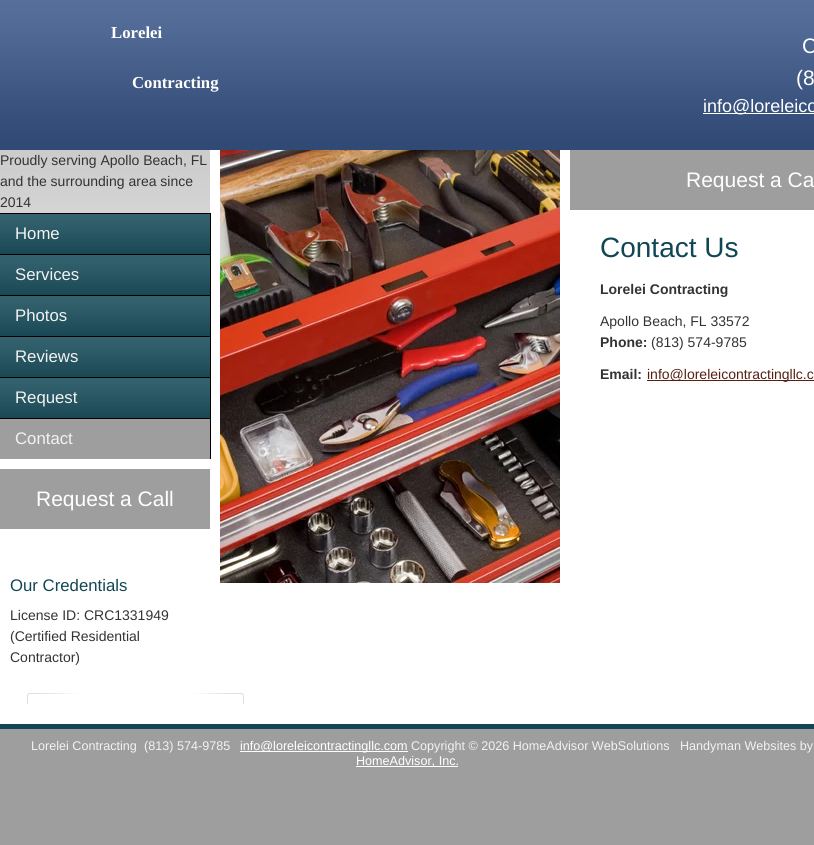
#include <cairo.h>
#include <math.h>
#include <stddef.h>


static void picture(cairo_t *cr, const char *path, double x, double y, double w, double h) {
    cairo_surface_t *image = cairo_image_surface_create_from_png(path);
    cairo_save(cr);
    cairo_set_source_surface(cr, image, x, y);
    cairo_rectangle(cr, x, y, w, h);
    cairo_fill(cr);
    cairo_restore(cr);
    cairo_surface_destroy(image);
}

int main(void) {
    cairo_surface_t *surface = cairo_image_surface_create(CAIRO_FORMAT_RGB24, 814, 845);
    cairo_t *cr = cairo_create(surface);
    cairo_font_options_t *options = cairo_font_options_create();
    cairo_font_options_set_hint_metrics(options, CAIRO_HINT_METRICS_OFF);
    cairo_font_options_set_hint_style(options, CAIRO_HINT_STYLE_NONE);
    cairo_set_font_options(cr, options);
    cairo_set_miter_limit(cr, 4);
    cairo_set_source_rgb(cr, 0.62, 0.62, 0.62);
    cairo_paint(cr);
    cairo_set_source_rgb(cr, 1, 1, 1);
    cairo_rectangle(cr, 0, 150, 814, 574);
    cairo_fill(cr);
    cairo_set_source_rgb(cr, 0.224, 0.341, 0.541);
    cairo_rectangle(cr, 0, 0, 814, 150);
    cairo_fill(cr);
    picture(cr, "img1.png", 0, 0, 814, 150);
    cairo_select_font_face(cr, "Liberation Serif", CAIRO_FONT_SLANT_NORMAL, CAIRO_FONT_WEIGHT_BOLD);
    cairo_set_font_size(cr, 16.75);
    cairo_set_source_rgb(cr, 1, 1, 1);
    cairo_move_to(cr, 111, 38);
    cairo_show_text(cr, "Lorelei");
    cairo_move_to(cr, 132, 88);
    cairo_show_text(cr, "Contracting");
    cairo_select_font_face(cr, "Liberation Sans", CAIRO_FONT_SLANT_NORMAL, CAIRO_FONT_WEIGHT_NORMAL);
    cairo_set_font_size(cr, 21);
    cairo_move_to(cr, 802, 53);
    cairo_show_text(cr, "C");
    cairo_move_to(cr, 796, 85);
    cairo_show_text(cr, "(8");
    cairo_rectangle(cr, 703, 113, 111, 1);
    cairo_fill(cr);
    cairo_set_font_size(cr, 18);
    cairo_move_to(cr, 703, 112);
    cairo_show_text(cr, "info@loreleico");
    picture(cr, "img2.png", 0, 150, 210, 63);
    cairo_set_font_size(cr, 14);
    cairo_set_source_rgb(cr, 0.2, 0.2, 0.2);
    cairo_move_to(cr, 0, 165);
    cairo_show_text(cr, "Proudly serving Apollo Beach, FL");
    cairo_move_to(cr, 0, 186);
    cairo_show_text(cr, "and the surrounding area since");
    cairo_move_to(cr, 0, 207);
    cairo_show_text(cr, "2014");
    cairo_set_source_rgb(cr, 0.067, 0.275, 0.333);
    cairo_rectangle(cr, 0, 214, 210, 204);
    cairo_fill(cr);
    picture(cr, "img3.png", 0, 214, 210, 40);
    cairo_set_source_rgb(cr, 0, 0, 0);
    cairo_rectangle(cr, 0, 213, 211, 1);
    cairo_fill(cr);
    cairo_rectangle(cr, 210, 213, 1, 41);
    cairo_fill(cr);
    cairo_set_font_size(cr, 16.75);
    cairo_set_source_rgb(cr, 0.949, 0.949, 0.949);
    cairo_move_to(cr, 15, 239);
    cairo_show_text(cr, "Home");
    picture(cr, "img3.png", 0, 255, 210, 40);
    cairo_set_source_rgb(cr, 0, 0, 0);
    cairo_rectangle(cr, 0, 254, 211, 1);
    cairo_fill(cr);
    cairo_rectangle(cr, 210, 254, 1, 41);
    cairo_fill(cr);
    cairo_set_source_rgb(cr, 0.949, 0.949, 0.949);
    cairo_move_to(cr, 15, 280);
    cairo_show_text(cr, "Services");
    picture(cr, "img3.png", 0, 296, 210, 40);
    cairo_set_source_rgb(cr, 0, 0, 0);
    cairo_rectangle(cr, 0, 295, 211, 1);
    cairo_fill(cr);
    cairo_rectangle(cr, 210, 295, 1, 41);
    cairo_fill(cr);
    cairo_set_source_rgb(cr, 0.949, 0.949, 0.949);
    cairo_move_to(cr, 15, 321);
    cairo_show_text(cr, "Photos");
    picture(cr, "img3.png", 0, 337, 210, 40);
    cairo_set_source_rgb(cr, 0, 0, 0);
    cairo_rectangle(cr, 0, 336, 211, 1);
    cairo_fill(cr);
    cairo_rectangle(cr, 210, 336, 1, 41);
    cairo_fill(cr);
    cairo_set_source_rgb(cr, 0.949, 0.949, 0.949);
    cairo_move_to(cr, 15, 362);
    cairo_show_text(cr, "Reviews");
    picture(cr, "img3.png", 0, 378, 210, 40);
    cairo_set_source_rgb(cr, 0, 0, 0);
    cairo_rectangle(cr, 0, 377, 211, 1);
    cairo_fill(cr);
    cairo_rectangle(cr, 210, 377, 1, 41);
    cairo_fill(cr);
    cairo_set_source_rgb(cr, 0.949, 0.949, 0.949);
    cairo_move_to(cr, 15, 403);
    cairo_show_text(cr, "Request");
    cairo_set_source_rgb(cr, 0.62, 0.62, 0.62);
    cairo_rectangle(cr, 0, 419, 210, 40);
    cairo_fill(cr);
    cairo_set_source_rgb(cr, 0, 0, 0);
    cairo_rectangle(cr, 0, 418, 211, 1);
    cairo_fill(cr);
    cairo_rectangle(cr, 210, 418, 1, 41);
    cairo_fill(cr);
    cairo_set_source_rgb(cr, 0.949, 0.949, 0.949);
    cairo_move_to(cr, 15, 444);
    cairo_show_text(cr, "Contact");
    cairo_set_source_rgb(cr, 0.62, 0.62, 0.62);
    cairo_rectangle(cr, 0, 469, 210, 60);
    cairo_fill(cr);
    cairo_set_font_size(cr, 21);
    cairo_set_source_rgb(cr, 1, 1, 1);
    cairo_move_to(cr, 36, 506);
    cairo_show_text(cr, "Request a Call");
    cairo_set_font_size(cr, 16.75);
    cairo_set_source_rgb(cr, 0.067, 0.275, 0.333);
    cairo_move_to(cr, 10, 591);
    cairo_show_text(cr, "Our Credentials");
    cairo_set_font_size(cr, 14);
    cairo_set_source_rgb(cr, 0.2, 0.2, 0.2);
    cairo_move_to(cr, 10, 620);
    cairo_show_text(cr, "License ID: CRC1331949");
    cairo_move_to(cr, 10, 641);
    cairo_show_text(cr, "(Certified Residential");
    cairo_move_to(cr, 10, 662);
    cairo_show_text(cr, "Contractor)");
    picture(cr, "img4.png", 27, 693, 217, 11);
    picture(cr, "img5.png", 220, 150, 340, 433);
    cairo_set_source_rgb(cr, 0.62, 0.62, 0.62);
    cairo_rectangle(cr, 570, 150, 244, 60);
    cairo_fill(cr);
    cairo_set_font_size(cr, 21);
    cairo_set_source_rgb(cr, 1, 1, 1);
    cairo_move_to(cr, 686, 187);
    cairo_show_text(cr, "Request a Ca");
    cairo_set_font_size(cr, 28);
    cairo_set_source_rgb(cr, 0.067, 0.275, 0.333);
    cairo_move_to(cr, 600, 257);
    cairo_show_text(cr, "Contact Us");
    cairo_select_font_face(cr, "Liberation Sans", CAIRO_FONT_SLANT_NORMAL, CAIRO_FONT_WEIGHT_BOLD);
    cairo_set_font_size(cr, 14);
    cairo_set_source_rgb(cr, 0.2, 0.2, 0.2);
    cairo_move_to(cr, 600, 294);
    cairo_show_text(cr, "Lorelei Contracting");
    cairo_select_font_face(cr, "Liberation Sans", CAIRO_FONT_SLANT_NORMAL, CAIRO_FONT_WEIGHT_NORMAL);
    cairo_move_to(cr, 600, 326);
    cairo_show_text(cr, "Apollo Beach, FL 33572");
    cairo_select_font_face(cr, "Liberation Sans", CAIRO_FONT_SLANT_NORMAL, CAIRO_FONT_WEIGHT_BOLD);
    cairo_move_to(cr, 600, 347);
    cairo_show_text(cr, "Phone:");
    cairo_select_font_face(cr, "Liberation Sans", CAIRO_FONT_SLANT_NORMAL, CAIRO_FONT_WEIGHT_NORMAL);
    cairo_move_to(cr, 651, 347);
    cairo_show_text(cr, "(813) 574-9785");
    cairo_select_font_face(cr, "Liberation Sans", CAIRO_FONT_SLANT_NORMAL, CAIRO_FONT_WEIGHT_BOLD);
    cairo_move_to(cr, 600, 379);
    cairo_show_text(cr, "Email:");
    cairo_set_source_rgb(cr, 0.333, 0.125, 0.067);
    cairo_rectangle(cr, 647, 380, 167, 1);
    cairo_fill(cr);
    cairo_select_font_face(cr, "Liberation Sans", CAIRO_FONT_SLANT_NORMAL, CAIRO_FONT_WEIGHT_NORMAL);
    cairo_move_to(cr, 647, 379);
    cairo_show_text(cr, "info@loreleicontractingllc.c");
    cairo_set_source_rgb(cr, 0.067, 0.275, 0.333);
    cairo_rectangle(cr, 0, 724, 814, 5);
    cairo_fill(cr);
    cairo_set_font_size(cr, 12.6);
    cairo_set_source_rgb(cr, 0.949, 0.949, 0.949);
    cairo_move_to(cr, 31, 750);
    cairo_show_text(cr, "Lorelei Contracting");
    cairo_move_to(cr, 144, 750);
    cairo_show_text(cr, "(813) 574-9785");
    cairo_set_source_rgb(cr, 1, 1, 1);
    cairo_rectangle(cr, 240, 751, 168, 1);
    cairo_fill(cr);
    cairo_move_to(cr, 240, 750);
    cairo_show_text(cr, "info@loreleicontractingllc.com");
    cairo_set_source_rgb(cr, 0.949, 0.949, 0.949);
    cairo_move_to(cr, 411, 750);
    cairo_show_text(cr, "Copyright © 2026 HomeAdvisor WebSolutions");
    cairo_move_to(cr, 680, 750);
    cairo_show_text(cr, "Handyman Websites by");
    cairo_set_source_rgb(cr, 1, 1, 1);
    cairo_rectangle(cr, 356, 766, 102, 1);
    cairo_fill(cr);
    cairo_move_to(cr, 356, 765);
    cairo_show_text(cr, "HomeAdvisor, Inc.");
    cairo_surface_write_to_png(surface, "page.png");
    cairo_font_options_destroy(options);
    cairo_destroy(cr);
    cairo_surface_destroy(surface);
    return 0;
}
